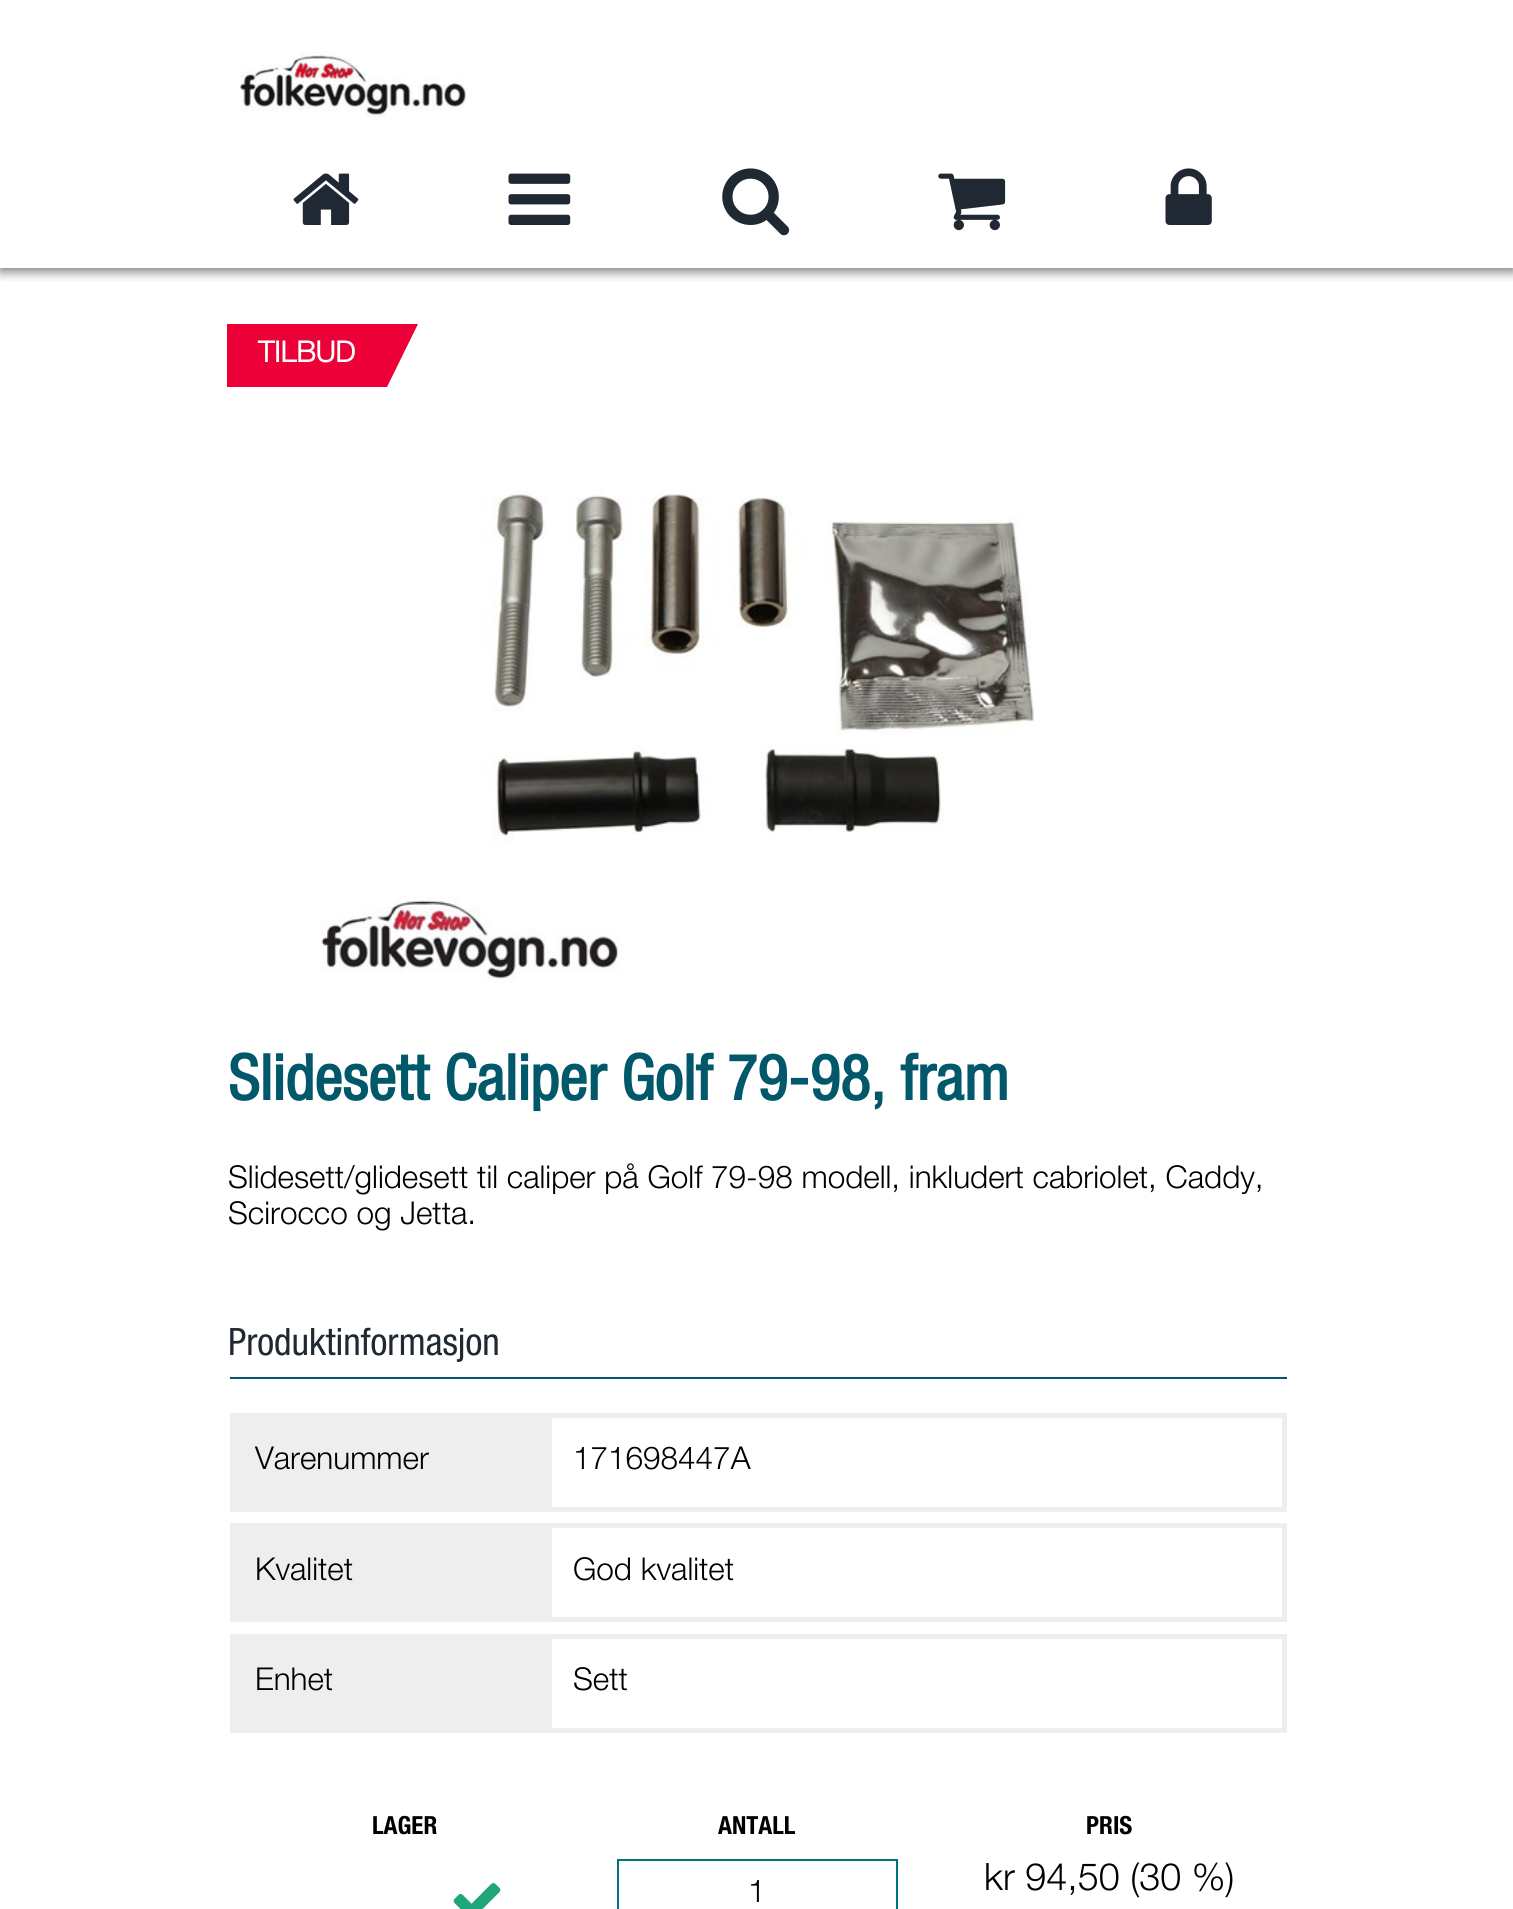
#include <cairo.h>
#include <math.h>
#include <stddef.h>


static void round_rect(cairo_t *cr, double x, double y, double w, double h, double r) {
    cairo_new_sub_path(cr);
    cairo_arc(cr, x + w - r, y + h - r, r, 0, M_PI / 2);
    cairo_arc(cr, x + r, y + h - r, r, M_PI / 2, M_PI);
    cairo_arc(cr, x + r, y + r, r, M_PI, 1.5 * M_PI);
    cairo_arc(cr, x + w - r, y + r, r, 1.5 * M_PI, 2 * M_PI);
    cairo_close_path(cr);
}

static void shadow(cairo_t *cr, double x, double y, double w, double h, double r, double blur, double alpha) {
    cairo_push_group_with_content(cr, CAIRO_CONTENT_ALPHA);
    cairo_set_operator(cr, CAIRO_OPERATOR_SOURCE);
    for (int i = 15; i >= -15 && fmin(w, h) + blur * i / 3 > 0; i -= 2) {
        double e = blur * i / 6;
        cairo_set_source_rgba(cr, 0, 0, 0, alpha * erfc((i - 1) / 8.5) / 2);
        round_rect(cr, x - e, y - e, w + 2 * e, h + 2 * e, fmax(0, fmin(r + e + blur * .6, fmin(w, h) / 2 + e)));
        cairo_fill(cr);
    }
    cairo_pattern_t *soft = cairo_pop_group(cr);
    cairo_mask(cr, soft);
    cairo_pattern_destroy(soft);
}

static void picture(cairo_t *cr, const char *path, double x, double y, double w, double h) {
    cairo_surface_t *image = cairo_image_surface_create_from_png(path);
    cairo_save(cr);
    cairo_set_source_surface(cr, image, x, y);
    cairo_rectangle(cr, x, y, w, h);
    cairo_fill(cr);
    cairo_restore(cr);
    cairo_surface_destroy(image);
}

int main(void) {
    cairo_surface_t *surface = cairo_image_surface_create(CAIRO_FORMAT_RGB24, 1513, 1909);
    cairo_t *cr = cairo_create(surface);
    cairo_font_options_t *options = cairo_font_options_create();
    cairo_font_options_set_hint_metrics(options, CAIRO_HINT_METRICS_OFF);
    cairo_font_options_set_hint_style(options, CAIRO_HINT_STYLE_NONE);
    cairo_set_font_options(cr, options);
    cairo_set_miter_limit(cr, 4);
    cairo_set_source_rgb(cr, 1, 1, 1);
    cairo_paint(cr);
    cairo_save(cr);
    cairo_rectangle(cr, 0, 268, 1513, 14);
    cairo_clip(cr);
    cairo_set_source_rgb(cr, 0, 0, 0);
    shadow(cr, 0, 5, 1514, 267, 0, 5.5, 0.5);
    cairo_restore(cr);
    picture(cr, "img1.png", 240, 52, 226, 65);
    cairo_set_source_rgb(cr, 1, 1, 1);
    cairo_rectangle(cr, 0, 267, 1513, 1);
    cairo_fill(cr);
    picture(cr, "img2.png", 293, 173, 66, 52);
    picture(cr, "img3.png", 508, 173, 63, 52);
    picture(cr, "img4.png", 722, 168, 68, 68);
    picture(cr, "img5.png", 938, 173, 68, 58);
    picture(cr, "img6.png", 1165, 168, 47, 57);
    cairo_set_source_rgb(cr, 0.922, 0, 0.216);
    cairo_new_path(cr);
    cairo_move_to(cr, 227, 324);
    cairo_line_to(cr, 418, 324);
    cairo_line_to(cr, 387, 387);
    cairo_line_to(cr, 227, 387);
    cairo_close_path(cr);
    cairo_fill(cr);
    cairo_select_font_face(cr, "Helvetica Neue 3", CAIRO_FONT_SLANT_NORMAL, CAIRO_FONT_WEIGHT_BOLD);
    cairo_set_font_size(cr, 29);
    cairo_set_source_rgb(cr, 1, 1, 1);
    cairo_move_to(cr, 258, 362);
    cairo_show_text(cr, "TILBUD");
    picture(cr, "img7.png", 320, 489, 716, 494);
    cairo_select_font_face(cr, "Helvetica Neue", CAIRO_FONT_SLANT_NORMAL, CAIRO_FONT_WEIGHT_BOLD);
    cairo_set_font_size(cr, 63);
    cairo_set_source_rgb(cr, 0, 0.345, 0.416);
    cairo_move_to(cr, 228, 1100);
    cairo_show_text(cr, "Slidesett Caliper Golf 79-98, fram");
    cairo_select_font_face(cr, "Helvetica Neue Light", CAIRO_FONT_SLANT_NORMAL, CAIRO_FONT_WEIGHT_NORMAL);
    cairo_set_font_size(cr, 31.5);
    cairo_set_source_rgb(cr, 0, 0, 0);
    cairo_move_to(cr, 228, 1188);
    cairo_show_text(cr, "Slidesett/glidesett til caliper på Golf 79-98 modell, inkludert cabriolet, Caddy,");
    cairo_move_to(cr, 228, 1224);
    cairo_show_text(cr, "Scirocco og Jetta.");
    cairo_set_source_rgb(cr, 0, 0.345, 0.416);
    cairo_rectangle(cr, 230, 1377, 1057, 2);
    cairo_fill(cr);
    cairo_select_font_face(cr, "Helvetica Neue", CAIRO_FONT_SLANT_NORMAL, CAIRO_FONT_WEIGHT_NORMAL);
    cairo_set_font_size(cr, 37.75);
    cairo_set_source_rgb(cr, 0.122, 0.157, 0.2);
    cairo_move_to(cr, 228, 1355);
    cairo_show_text(cr, "Produktinformasjon");
    cairo_set_source_rgb(cr, 0.933, 0.933, 0.933);
    cairo_rectangle(cr, 230, 1413, 317, 99);
    cairo_fill(cr);
    cairo_select_font_face(cr, "Helvetica Neue Light", CAIRO_FONT_SLANT_NORMAL, CAIRO_FONT_WEIGHT_NORMAL);
    cairo_set_font_size(cr, 31.5);
    cairo_set_source_rgb(cr, 0, 0, 0);
    cairo_move_to(cr, 255, 1469);
    cairo_show_text(cr, "Varenummer");
    cairo_rectangle(cr, 549.5, 1415.5, 735, 94);
    cairo_set_source_rgb(cr, 0.933, 0.933, 0.933);
    cairo_set_line_width(cr, 5);
    cairo_stroke(cr);
    cairo_set_source_rgb(cr, 0, 0, 0);
    cairo_move_to(cr, 573, 1469);
    cairo_show_text(cr, "171698447A");
    cairo_set_source_rgb(cr, 0.933, 0.933, 0.933);
    cairo_rectangle(cr, 230, 1523, 317, 99);
    cairo_fill(cr);
    cairo_set_source_rgb(cr, 0, 0, 0);
    cairo_move_to(cr, 255, 1580);
    cairo_show_text(cr, "Kvalitet");
    cairo_rectangle(cr, 549.5, 1525.5, 735, 94);
    cairo_set_source_rgb(cr, 0.933, 0.933, 0.933);
    cairo_stroke(cr);
    cairo_set_source_rgb(cr, 0, 0, 0);
    cairo_move_to(cr, 573, 1580);
    cairo_show_text(cr, "God kvalitet");
    cairo_set_source_rgb(cr, 0.933, 0.933, 0.933);
    cairo_rectangle(cr, 230, 1634, 317, 99);
    cairo_fill(cr);
    cairo_set_source_rgb(cr, 0, 0, 0);
    cairo_move_to(cr, 255, 1690);
    cairo_show_text(cr, "Enhet");
    cairo_rectangle(cr, 549.5, 1636.5, 735, 94);
    cairo_set_source_rgb(cr, 0.933, 0.933, 0.933);
    cairo_stroke(cr);
    cairo_set_source_rgb(cr, 0, 0, 0);
    cairo_move_to(cr, 573, 1690);
    cairo_show_text(cr, "Sett");
    cairo_select_font_face(cr, "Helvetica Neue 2", CAIRO_FONT_SLANT_NORMAL, CAIRO_FONT_WEIGHT_BOLD);
    cairo_set_font_size(cr, 25);
    cairo_move_to(cr, 372, 1834);
    cairo_show_text(cr, "LAGER");
    picture(cr, "img8.png", 453, 1883, 48, 26);
    cairo_move_to(cr, 718, 1834);
    cairo_show_text(cr, "ANTALL");
    cairo_rectangle(cr, 618, 1860, 279, 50);
    cairo_set_source_rgb(cr, 0, 0.447, 0.482);
    cairo_set_line_width(cr, 2);
    cairo_stroke(cr);
    cairo_select_font_face(cr, "Helvetica Neue Light", CAIRO_FONT_SLANT_NORMAL, CAIRO_FONT_WEIGHT_NORMAL);
    cairo_set_font_size(cr, 31.5);
    cairo_set_source_rgb(cr, 0, 0, 0);
    cairo_move_to(cr, 748, 1902);
    cairo_show_text(cr, "1");
    cairo_select_font_face(cr, "Helvetica Neue 2", CAIRO_FONT_SLANT_NORMAL, CAIRO_FONT_WEIGHT_BOLD);
    cairo_set_font_size(cr, 25);
    cairo_move_to(cr, 1086, 1834);
    cairo_show_text(cr, "PRIS");
    cairo_select_font_face(cr, "Helvetica Neue Light", CAIRO_FONT_SLANT_NORMAL, CAIRO_FONT_WEIGHT_NORMAL);
    cairo_set_font_size(cr, 37.75);
    cairo_move_to(cr, 984, 1890);
    cairo_show_text(cr, "kr 94,50 (30 %)");
    cairo_surface_write_to_png(surface, "page.png");
    cairo_font_options_destroy(options);
    cairo_destroy(cr);
    cairo_surface_destroy(surface);
    return 0;
}
